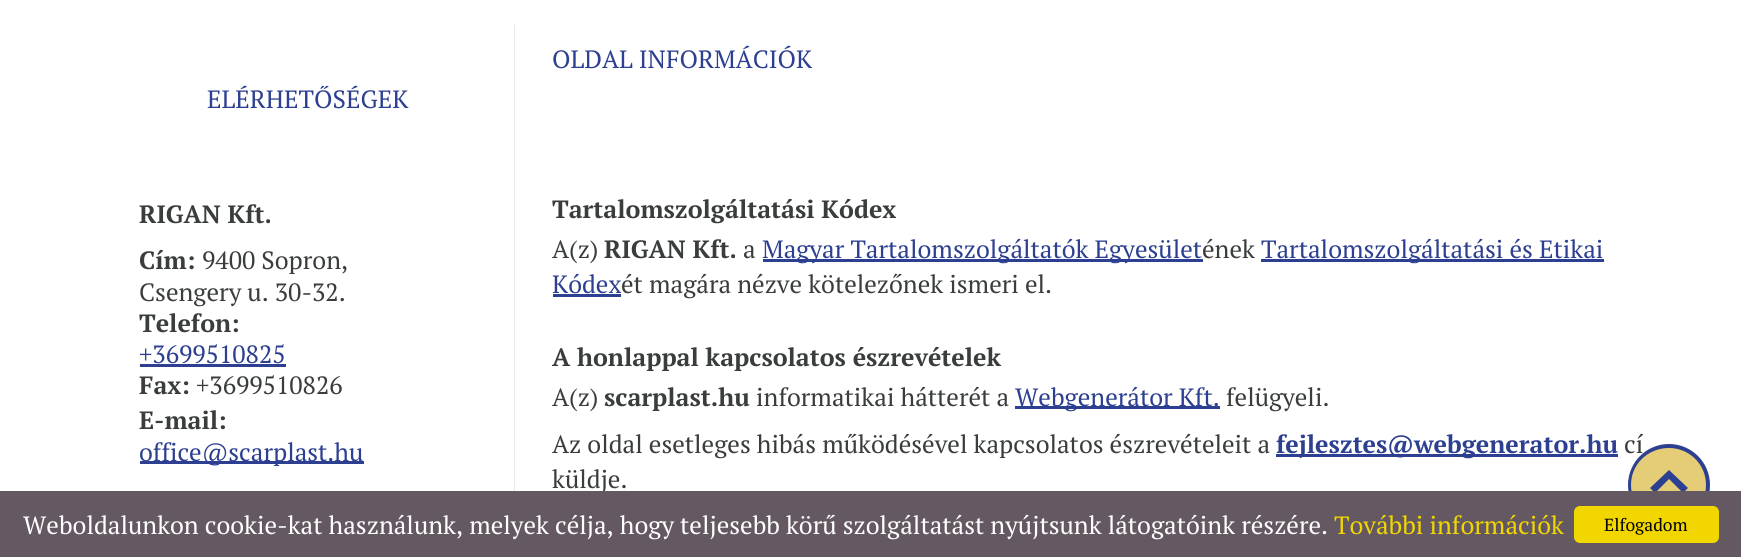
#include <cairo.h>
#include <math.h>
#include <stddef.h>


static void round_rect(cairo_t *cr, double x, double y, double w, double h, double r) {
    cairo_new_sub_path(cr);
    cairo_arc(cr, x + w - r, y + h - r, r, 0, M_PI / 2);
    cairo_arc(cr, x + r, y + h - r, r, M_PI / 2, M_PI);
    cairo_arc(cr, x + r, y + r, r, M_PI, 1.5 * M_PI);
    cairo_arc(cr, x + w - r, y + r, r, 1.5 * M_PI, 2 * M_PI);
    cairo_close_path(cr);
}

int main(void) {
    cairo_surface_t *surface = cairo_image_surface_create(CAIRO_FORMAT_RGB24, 1741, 557);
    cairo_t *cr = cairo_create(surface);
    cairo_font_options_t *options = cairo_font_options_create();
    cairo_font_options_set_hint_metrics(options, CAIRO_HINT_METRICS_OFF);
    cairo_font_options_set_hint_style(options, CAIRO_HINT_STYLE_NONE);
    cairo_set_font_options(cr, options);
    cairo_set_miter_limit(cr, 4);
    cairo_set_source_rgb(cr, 1, 1, 1);
    cairo_paint(cr);
    cairo_set_source_rgb(cr, 0.914, 0.914, 0.914);
    cairo_rectangle(cr, 514, 25, 1, 466);
    cairo_fill(cr);
    cairo_select_font_face(cr, "PT Serif", CAIRO_FONT_SLANT_NORMAL, CAIRO_FONT_WEIGHT_NORMAL);
    cairo_set_font_size(cr, 25);
    cairo_set_source_rgb(cr, 0.173, 0.247, 0.565);
    cairo_move_to(cr, 207, 108);
    cairo_show_text(cr, "ELÉRHETŐSÉGEK");
    cairo_select_font_face(cr, "PT Serif", CAIRO_FONT_SLANT_NORMAL, CAIRO_FONT_WEIGHT_BOLD);
    cairo_set_source_rgb(cr, 0.224, 0.243, 0.227);
    cairo_move_to(cr, 139, 223);
    cairo_show_text(cr, "RIGAN Kft.");
    cairo_move_to(cr, 139, 269);
    cairo_show_text(cr, "Cím:");
    cairo_select_font_face(cr, "PT Serif", CAIRO_FONT_SLANT_NORMAL, CAIRO_FONT_WEIGHT_NORMAL);
    cairo_move_to(cr, 202, 269);
    cairo_show_text(cr, "9400 Sopron,");
    cairo_move_to(cr, 139, 301);
    cairo_show_text(cr, "Csengery u. 30-32.");
    cairo_select_font_face(cr, "PT Serif", CAIRO_FONT_SLANT_NORMAL, CAIRO_FONT_WEIGHT_BOLD);
    cairo_move_to(cr, 139, 332);
    cairo_show_text(cr, "Telefon:");
    cairo_select_font_face(cr, "PT Serif", CAIRO_FONT_SLANT_NORMAL, CAIRO_FONT_WEIGHT_NORMAL);
    cairo_set_source_rgb(cr, 0.173, 0.247, 0.565);
    cairo_move_to(cr, 139, 363);
    cairo_show_text(cr, "+3699510825");
    cairo_rectangle(cr, 140, 364, 146, 3);
    cairo_fill(cr);
    cairo_select_font_face(cr, "PT Serif", CAIRO_FONT_SLANT_NORMAL, CAIRO_FONT_WEIGHT_BOLD);
    cairo_set_source_rgb(cr, 0.224, 0.243, 0.227);
    cairo_move_to(cr, 139, 394);
    cairo_show_text(cr, "Fax:");
    cairo_select_font_face(cr, "PT Serif", CAIRO_FONT_SLANT_NORMAL, CAIRO_FONT_WEIGHT_NORMAL);
    cairo_move_to(cr, 196, 394);
    cairo_show_text(cr, "+3699510826");
    cairo_select_font_face(cr, "PT Serif", CAIRO_FONT_SLANT_NORMAL, CAIRO_FONT_WEIGHT_BOLD);
    cairo_move_to(cr, 139, 429);
    cairo_show_text(cr, "E-mail:");
    cairo_set_source_rgb(cr, 0.173, 0.247, 0.565);
    cairo_rectangle(cr, 140, 461, 224, 3);
    cairo_fill(cr);
    cairo_select_font_face(cr, "PT Serif", CAIRO_FONT_SLANT_NORMAL, CAIRO_FONT_WEIGHT_NORMAL);
    cairo_move_to(cr, 139, 461);
    cairo_show_text(cr, "office@scarplast.hu");
    cairo_move_to(cr, 552, 68);
    cairo_show_text(cr, "OLDAL INFORMÁCIÓK");
    cairo_select_font_face(cr, "PT Serif", CAIRO_FONT_SLANT_NORMAL, CAIRO_FONT_WEIGHT_BOLD);
    cairo_set_source_rgb(cr, 0.224, 0.243, 0.227);
    cairo_move_to(cr, 552, 218);
    cairo_show_text(cr, "Tartalomszolgáltatási Kódex");
    cairo_select_font_face(cr, "PT Serif", CAIRO_FONT_SLANT_NORMAL, CAIRO_FONT_WEIGHT_NORMAL);
    cairo_move_to(cr, 552, 258);
    cairo_show_text(cr, "A(z)");
    cairo_select_font_face(cr, "PT Serif", CAIRO_FONT_SLANT_NORMAL, CAIRO_FONT_WEIGHT_BOLD);
    cairo_move_to(cr, 604, 258);
    cairo_show_text(cr, "RIGAN Kft.");
    cairo_select_font_face(cr, "PT Serif", CAIRO_FONT_SLANT_NORMAL, CAIRO_FONT_WEIGHT_NORMAL);
    cairo_move_to(cr, 743, 258);
    cairo_show_text(cr, "a");
    cairo_set_source_rgb(cr, 0.173, 0.247, 0.565);
    cairo_rectangle(cr, 763, 259, 440, 3);
    cairo_fill(cr);
    cairo_move_to(cr, 762, 258);
    cairo_show_text(cr, "Magyar Tartalomszolgáltatók Egyesület");
    cairo_set_source_rgb(cr, 0.224, 0.243, 0.227);
    cairo_move_to(cr, 1202, 258);
    cairo_show_text(cr, "ének");
    cairo_set_source_rgb(cr, 0.173, 0.247, 0.565);
    cairo_rectangle(cr, 1261, 259, 343, 3);
    cairo_fill(cr);
    cairo_move_to(cr, 1261, 258);
    cairo_show_text(cr, "Tartalomszolgáltatási és Etikai");
    cairo_move_to(cr, 552, 293);
    cairo_show_text(cr, "Kódex");
    cairo_rectangle(cr, 553, 294, 68, 3);
    cairo_fill(cr);
    cairo_set_source_rgb(cr, 0.224, 0.243, 0.227);
    cairo_move_to(cr, 621, 293);
    cairo_show_text(cr, "ét magára nézve kötelezőnek ismeri el.");
    cairo_select_font_face(cr, "PT Serif", CAIRO_FONT_SLANT_NORMAL, CAIRO_FONT_WEIGHT_BOLD);
    cairo_move_to(cr, 552, 366);
    cairo_show_text(cr, "A honlappal kapcsolatos észrevételek");
    cairo_select_font_face(cr, "PT Serif", CAIRO_FONT_SLANT_NORMAL, CAIRO_FONT_WEIGHT_NORMAL);
    cairo_move_to(cr, 552, 406);
    cairo_show_text(cr, "A(z)");
    cairo_select_font_face(cr, "PT Serif", CAIRO_FONT_SLANT_NORMAL, CAIRO_FONT_WEIGHT_BOLD);
    cairo_move_to(cr, 604, 406);
    cairo_show_text(cr, "scarplast.hu");
    cairo_select_font_face(cr, "PT Serif", CAIRO_FONT_SLANT_NORMAL, CAIRO_FONT_WEIGHT_NORMAL);
    cairo_move_to(cr, 756, 406);
    cairo_show_text(cr, "informatikai hátterét a");
    cairo_set_source_rgb(cr, 0.173, 0.247, 0.565);
    cairo_rectangle(cr, 1015, 406, 205, 3);
    cairo_fill(cr);
    cairo_move_to(cr, 1015, 406);
    cairo_show_text(cr, "Webgenerátor Kft.");
    cairo_set_source_rgb(cr, 0.224, 0.243, 0.227);
    cairo_move_to(cr, 1226, 406);
    cairo_show_text(cr, "felügyeli.");
    cairo_move_to(cr, 552, 453);
    cairo_show_text(cr, "Az oldal esetleges hibás működésével kapcsolatos észrevételeit a");
    cairo_set_source_rgb(cr, 0.173, 0.247, 0.565);
    cairo_rectangle(cr, 1276, 454, 342, 3);
    cairo_fill(cr);
    cairo_select_font_face(cr, "PT Serif", CAIRO_FONT_SLANT_NORMAL, CAIRO_FONT_WEIGHT_BOLD);
    cairo_move_to(cr, 1276, 453);
    cairo_show_text(cr, "fejlesztes@webgenerator.hu");
    cairo_select_font_face(cr, "PT Serif", CAIRO_FONT_SLANT_NORMAL, CAIRO_FONT_WEIGHT_NORMAL);
    cairo_set_source_rgb(cr, 0.224, 0.243, 0.227);
    cairo_move_to(cr, 1624, 453);
    cairo_show_text(cr, "cí");
    cairo_move_to(cr, 552, 488);
    cairo_show_text(cr, "küldje.");
    cairo_set_source_rgb(cr, 0.173, 0.247, 0.565);
    cairo_new_path(cr);
    cairo_arc(cr, 1669, 485, 39, 0, 2 * M_PI);
    cairo_fill_preserve(cr);
    cairo_set_line_width(cr, 4);
    cairo_stroke(cr);
    cairo_set_source_rgb(cr, 0.898, 0.8, 0.463);
    cairo_new_path(cr);
    cairo_move_to(cr, 1631, 485);
    cairo_curve_to(cr, 1631, 464, 1648, 448, 1669, 448);
    cairo_curve_to(cr, 1689, 448, 1706, 464, 1706, 485);
    cairo_curve_to(cr, 1706, 506, 1689, 522, 1669, 522);
    cairo_curve_to(cr, 1648, 522, 1631, 506, 1631, 485);
    cairo_close_path(cr);
    cairo_move_to(cr, 1688, 488);
    cairo_line_to(cr, 1669, 470);
    cairo_line_to(cr, 1650, 488);
    cairo_line_to(cr, 1655, 493);
    cairo_line_to(cr, 1669, 479);
    cairo_line_to(cr, 1683, 493);
    cairo_close_path(cr);
    cairo_fill(cr);
    cairo_set_source_rgb(cr, 0.392, 0.345, 0.384);
    cairo_rectangle(cr, 0, 491, 1741, 66);
    cairo_fill(cr);
    cairo_set_source_rgb(cr, 1, 1, 1);
    cairo_move_to(cr, 23, 534);
    cairo_show_text(cr, "Weboldalunkon cookie-kat használunk, melyek célja, hogy teljesebb körű szolgáltatást nyújtsunk látogatóink részére.");
    cairo_set_source_rgb(cr, 0.945, 0.839, 0);
    cairo_move_to(cr, 1334, 534);
    cairo_show_text(cr, "További információk");
    round_rect(cr, 1574, 506, 145, 37, 6);
    cairo_fill(cr);
    cairo_set_font_size(cr, 17.5);
    cairo_set_source_rgb(cr, 0, 0, 0);
    cairo_move_to(cr, 1604, 531);
    cairo_show_text(cr, "Elfogadom");
    cairo_surface_write_to_png(surface, "page.png");
    cairo_font_options_destroy(options);
    cairo_destroy(cr);
    cairo_surface_destroy(surface);
    return 0;
}
